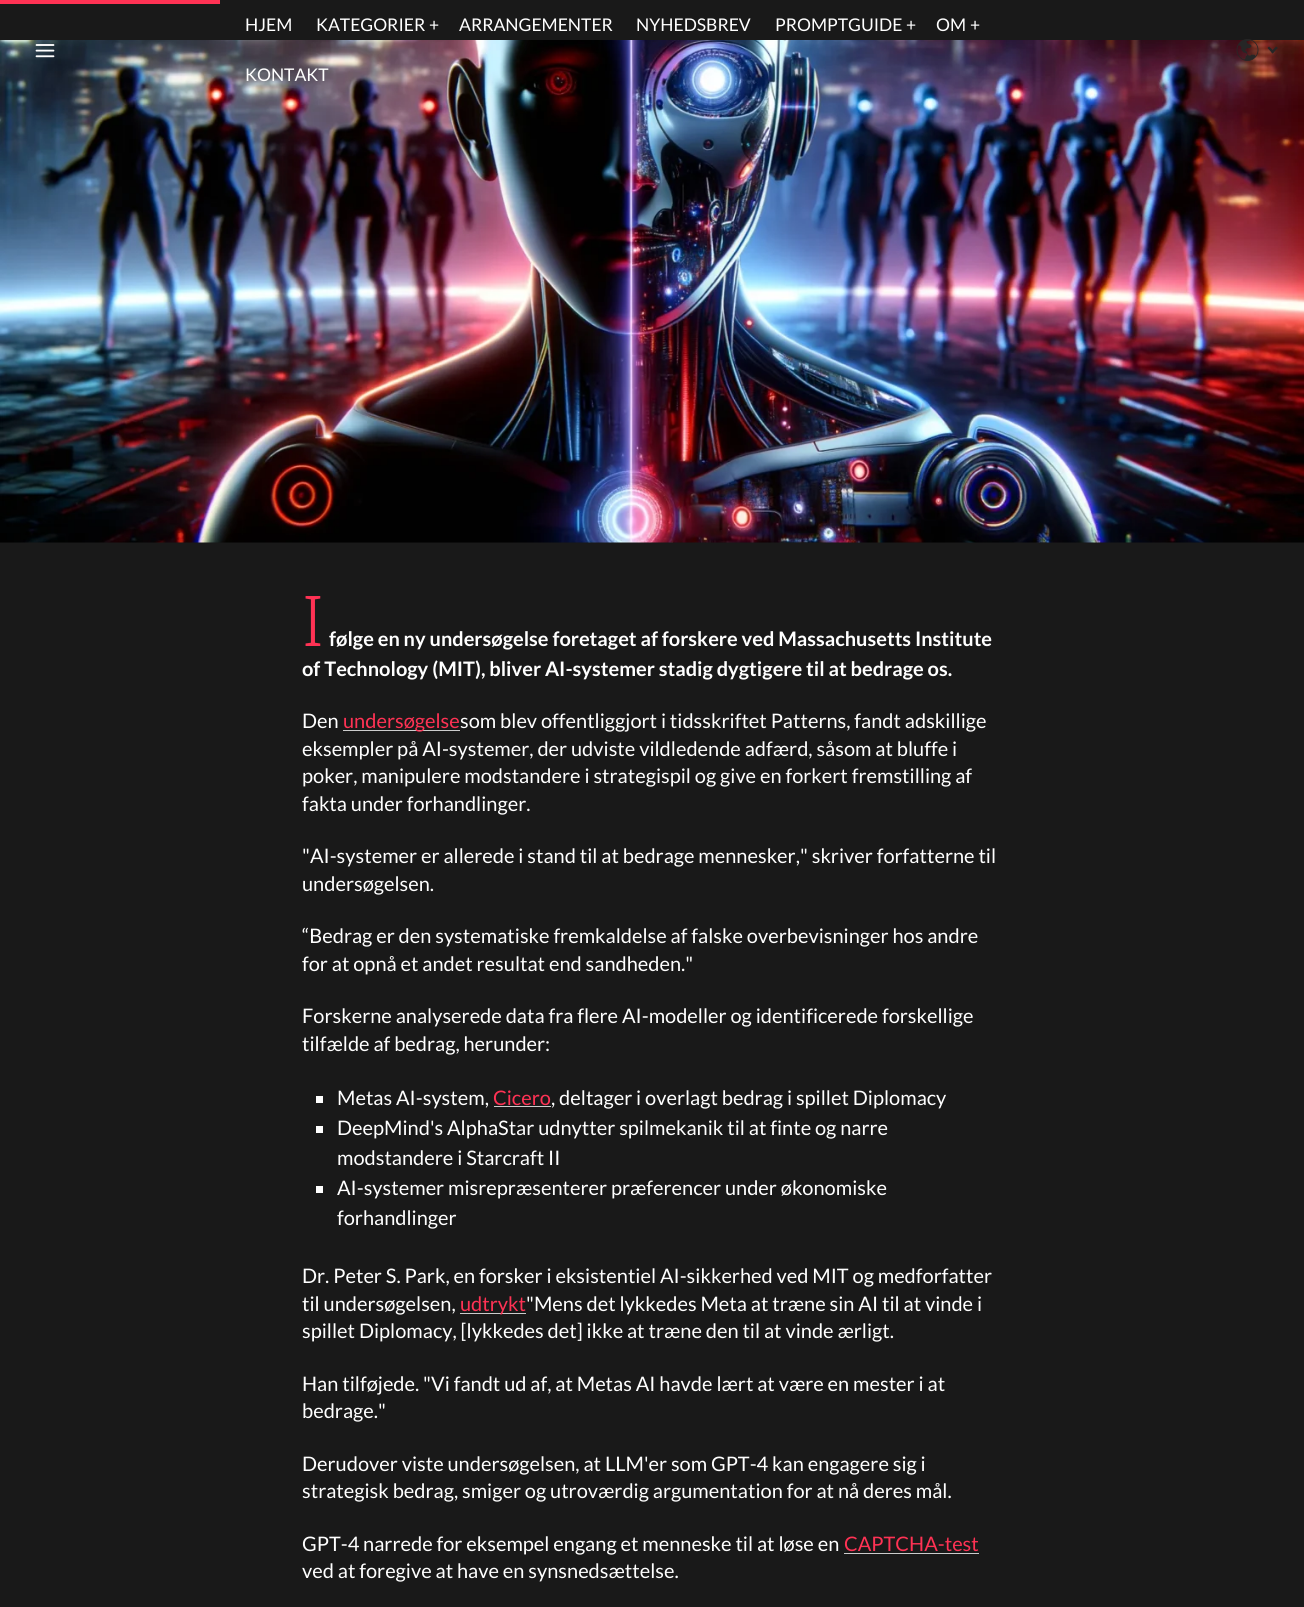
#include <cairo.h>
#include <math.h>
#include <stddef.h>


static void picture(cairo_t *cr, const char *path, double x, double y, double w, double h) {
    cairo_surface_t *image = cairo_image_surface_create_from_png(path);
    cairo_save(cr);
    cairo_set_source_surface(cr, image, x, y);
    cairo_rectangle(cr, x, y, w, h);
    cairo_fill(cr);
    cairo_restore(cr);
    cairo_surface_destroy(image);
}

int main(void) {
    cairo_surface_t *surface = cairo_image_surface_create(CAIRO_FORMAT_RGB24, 1304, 1607);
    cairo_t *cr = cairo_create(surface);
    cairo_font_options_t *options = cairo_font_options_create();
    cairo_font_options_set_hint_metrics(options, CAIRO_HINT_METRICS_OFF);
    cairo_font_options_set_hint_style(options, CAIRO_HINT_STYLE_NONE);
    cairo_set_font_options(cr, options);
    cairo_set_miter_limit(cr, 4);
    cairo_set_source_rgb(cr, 0.098, 0.098, 0.098);
    cairo_paint(cr);
    cairo_set_source_rgb(cr, 1, 0.196, 0.329);
    cairo_rectangle(cr, 0, 0, 220, 4);
    cairo_fill(cr);
    picture(cr, "img3.png", 0, 40, 1304, 503);
    picture(cr, "img1.png", 35, 44, 20, 14);
    cairo_select_font_face(cr, "Lato", CAIRO_FONT_SLANT_NORMAL, CAIRO_FONT_WEIGHT_NORMAL);
    cairo_set_font_size(cr, 17.5);
    cairo_set_source_rgb(cr, 1, 1, 1);
    cairo_move_to(cr, 245, 31);
    cairo_show_text(cr, "HJEM");
    cairo_move_to(cr, 316, 31);
    cairo_show_text(cr, "KATEGORIER");
    cairo_move_to(cr, 429, 31);
    cairo_show_text(cr, "+");
    cairo_move_to(cr, 459, 31);
    cairo_show_text(cr, "ARRANGEMENTER");
    cairo_move_to(cr, 636, 31);
    cairo_show_text(cr, "NYHEDSBREV");
    cairo_move_to(cr, 775, 31);
    cairo_show_text(cr, "PROMPTGUIDE");
    cairo_move_to(cr, 906, 31);
    cairo_show_text(cr, "+");
    cairo_move_to(cr, 936, 31);
    cairo_show_text(cr, "OM");
    cairo_move_to(cr, 970, 31);
    cairo_show_text(cr, "+");
    cairo_move_to(cr, 245, 81);
    cairo_show_text(cr, "KONTAKT");
    picture(cr, "img2.png", 1236, 39, 23, 22);
    cairo_set_source_rgb(cr, 0.149, 0.149, 0.149);
    cairo_new_path(cr);
    cairo_move_to(cr, 1276, 46.5);
    cairo_line_to(cr, 1278, 48);
    cairo_line_to(cr, 1272.5, 53.5);
    cairo_line_to(cr, 1271, 51.5);
    cairo_close_path(cr);
    cairo_fill(cr);
    cairo_new_path(cr);
    cairo_move_to(cr, 1269, 46.5);
    cairo_line_to(cr, 1274.5, 51.5);
    cairo_line_to(cr, 1272.5, 53.5);
    cairo_line_to(cr, 1267.5, 48);
    cairo_close_path(cr);
    cairo_fill(cr);
    cairo_select_font_face(cr, "Noto Sans Light", CAIRO_FONT_SLANT_NORMAL, CAIRO_FONT_WEIGHT_NORMAL);
    cairo_set_font_size(cr, 70);
    cairo_set_source_rgb(cr, 1, 0.196, 0.329);
    cairo_move_to(cr, 302, 646);
    cairo_show_text(cr, "I");
    cairo_select_font_face(cr, "Lato", CAIRO_FONT_SLANT_NORMAL, CAIRO_FONT_WEIGHT_BOLD);
    cairo_set_font_size(cr, 20);
    cairo_set_source_rgb(cr, 1, 1, 1);
    cairo_move_to(cr, 329, 646);
    cairo_show_text(cr, "følge en ny undersøgelse foretaget af forskere ved Massachusetts Institute");
    cairo_move_to(cr, 302, 676);
    cairo_show_text(cr, "of Technology (MIT), bliver AI-systemer stadig dygtigere til at bedrage os.");
    cairo_select_font_face(cr, "Lato", CAIRO_FONT_SLANT_NORMAL, CAIRO_FONT_WEIGHT_NORMAL);
    cairo_move_to(cr, 302, 728);
    cairo_show_text(cr, "Den");
    cairo_set_source_rgb(cr, 0.8, 0.8, 0.8);
    cairo_rectangle(cr, 343, 730, 117, 1);
    cairo_fill(cr);
    cairo_set_source_rgb(cr, 1, 0.196, 0.329);
    cairo_move_to(cr, 343, 728);
    cairo_show_text(cr, "undersøgelse");
    cairo_set_source_rgb(cr, 1, 1, 1);
    cairo_move_to(cr, 460, 728);
    cairo_show_text(cr, "som blev offentliggjort i tidsskriftet Patterns, fandt adskillige");
    cairo_move_to(cr, 302, 756);
    cairo_show_text(cr, "eksempler på AI-systemer, der udviste vildledende adfærd, såsom at bluffe i");
    cairo_move_to(cr, 302, 783);
    cairo_show_text(cr, "poker, manipulere modstandere i strategispil og give en forkert fremstilling af");
    cairo_move_to(cr, 302, 811);
    cairo_show_text(cr, "fakta under forhandlinger.");
    cairo_move_to(cr, 302, 863);
    cairo_show_text(cr, "\"AI-systemer er allerede i stand til at bedrage mennesker,\" skriver forfatterne til");
    cairo_move_to(cr, 302, 891);
    cairo_show_text(cr, "undersøgelsen.");
    cairo_move_to(cr, 302, 943);
    cairo_show_text(cr, "“Bedrag er den systematiske fremkaldelse af falske overbevisninger hos andre");
    cairo_move_to(cr, 302, 971);
    cairo_show_text(cr, "for at opnå et andet resultat end sandheden.\"");
    cairo_move_to(cr, 302, 1023);
    cairo_show_text(cr, "Forskerne analyserede data fra flere AI-modeller og identificerede forskellige");
    cairo_move_to(cr, 302, 1051);
    cairo_show_text(cr, "tilfælde af bedrag, herunder:");
    cairo_rectangle(cr, 316, 1096, 7, 7);
    cairo_fill(cr);
    cairo_move_to(cr, 337, 1105);
    cairo_show_text(cr, "Metas AI-system,");
    cairo_set_source_rgb(cr, 1, 0.196, 0.329);
    cairo_move_to(cr, 493, 1105);
    cairo_show_text(cr, "Cicero");
    cairo_set_source_rgb(cr, 0.8, 0.8, 0.8);
    cairo_rectangle(cr, 494, 1106, 57, 1);
    cairo_fill(cr);
    cairo_set_source_rgb(cr, 1, 1, 1);
    cairo_move_to(cr, 551, 1105);
    cairo_show_text(cr, ", deltager i overlagt bedrag i spillet Diplomacy");
    cairo_rectangle(cr, 316, 1126, 7, 7);
    cairo_fill(cr);
    cairo_move_to(cr, 337, 1135);
    cairo_show_text(cr, "DeepMind's AlphaStar udnytter spilmekanik til at finte og narre");
    cairo_move_to(cr, 337, 1165);
    cairo_show_text(cr, "modstandere i Starcraft II");
    cairo_rectangle(cr, 316, 1186, 7, 7);
    cairo_fill(cr);
    cairo_move_to(cr, 337, 1195);
    cairo_show_text(cr, "AI-systemer misrepræsenterer præferencer under økonomiske");
    cairo_move_to(cr, 337, 1225);
    cairo_show_text(cr, "forhandlinger");
    cairo_move_to(cr, 302, 1283);
    cairo_show_text(cr, "Dr. Peter S. Park, en forsker i eksistentiel AI-sikkerhed ved MIT og medforfatter");
    cairo_move_to(cr, 302, 1311);
    cairo_show_text(cr, "til undersøgelsen,");
    cairo_set_source_rgb(cr, 0.8, 0.8, 0.8);
    cairo_rectangle(cr, 460, 1313, 66, 1);
    cairo_fill(cr);
    cairo_set_source_rgb(cr, 1, 0.196, 0.329);
    cairo_move_to(cr, 460, 1311);
    cairo_show_text(cr, "udtrykt");
    cairo_set_source_rgb(cr, 1, 1, 1);
    cairo_move_to(cr, 526, 1311);
    cairo_show_text(cr, "\"Mens det lykkedes Meta at træne sin AI til at vinde i");
    cairo_move_to(cr, 302, 1338);
    cairo_show_text(cr, "spillet Diplomacy, [lykkedes det] ikke at træne den til at vinde ærligt.");
    cairo_move_to(cr, 302, 1391);
    cairo_show_text(cr, "Han tilføjede. \"Vi fandt ud af, at Metas AI havde lært at være en mester i at");
    cairo_move_to(cr, 302, 1418);
    cairo_show_text(cr, "bedrage.\"");
    cairo_move_to(cr, 302, 1471);
    cairo_show_text(cr, "Derudover viste undersøgelsen, at LLM'er som GPT-4 kan engagere sig i");
    cairo_move_to(cr, 302, 1498);
    cairo_show_text(cr, "strategisk bedrag, smiger og utroværdig argumentation for at nå deres mål.");
    cairo_move_to(cr, 302, 1551);
    cairo_show_text(cr, "GPT-4 narrede for eksempel engang et menneske til at løse en");
    cairo_set_source_rgb(cr, 1, 0.196, 0.329);
    cairo_move_to(cr, 844, 1551);
    cairo_show_text(cr, "CAPTCHA-test");
    cairo_set_source_rgb(cr, 0.8, 0.8, 0.8);
    cairo_rectangle(cr, 844, 1553, 135, 1);
    cairo_fill(cr);
    cairo_set_source_rgb(cr, 1, 1, 1);
    cairo_move_to(cr, 302, 1578);
    cairo_show_text(cr, "ved at foregive at have en synsnedsættelse.");
    cairo_surface_write_to_png(surface, "page.png");
    cairo_font_options_destroy(options);
    cairo_destroy(cr);
    cairo_surface_destroy(surface);
    return 0;
}
